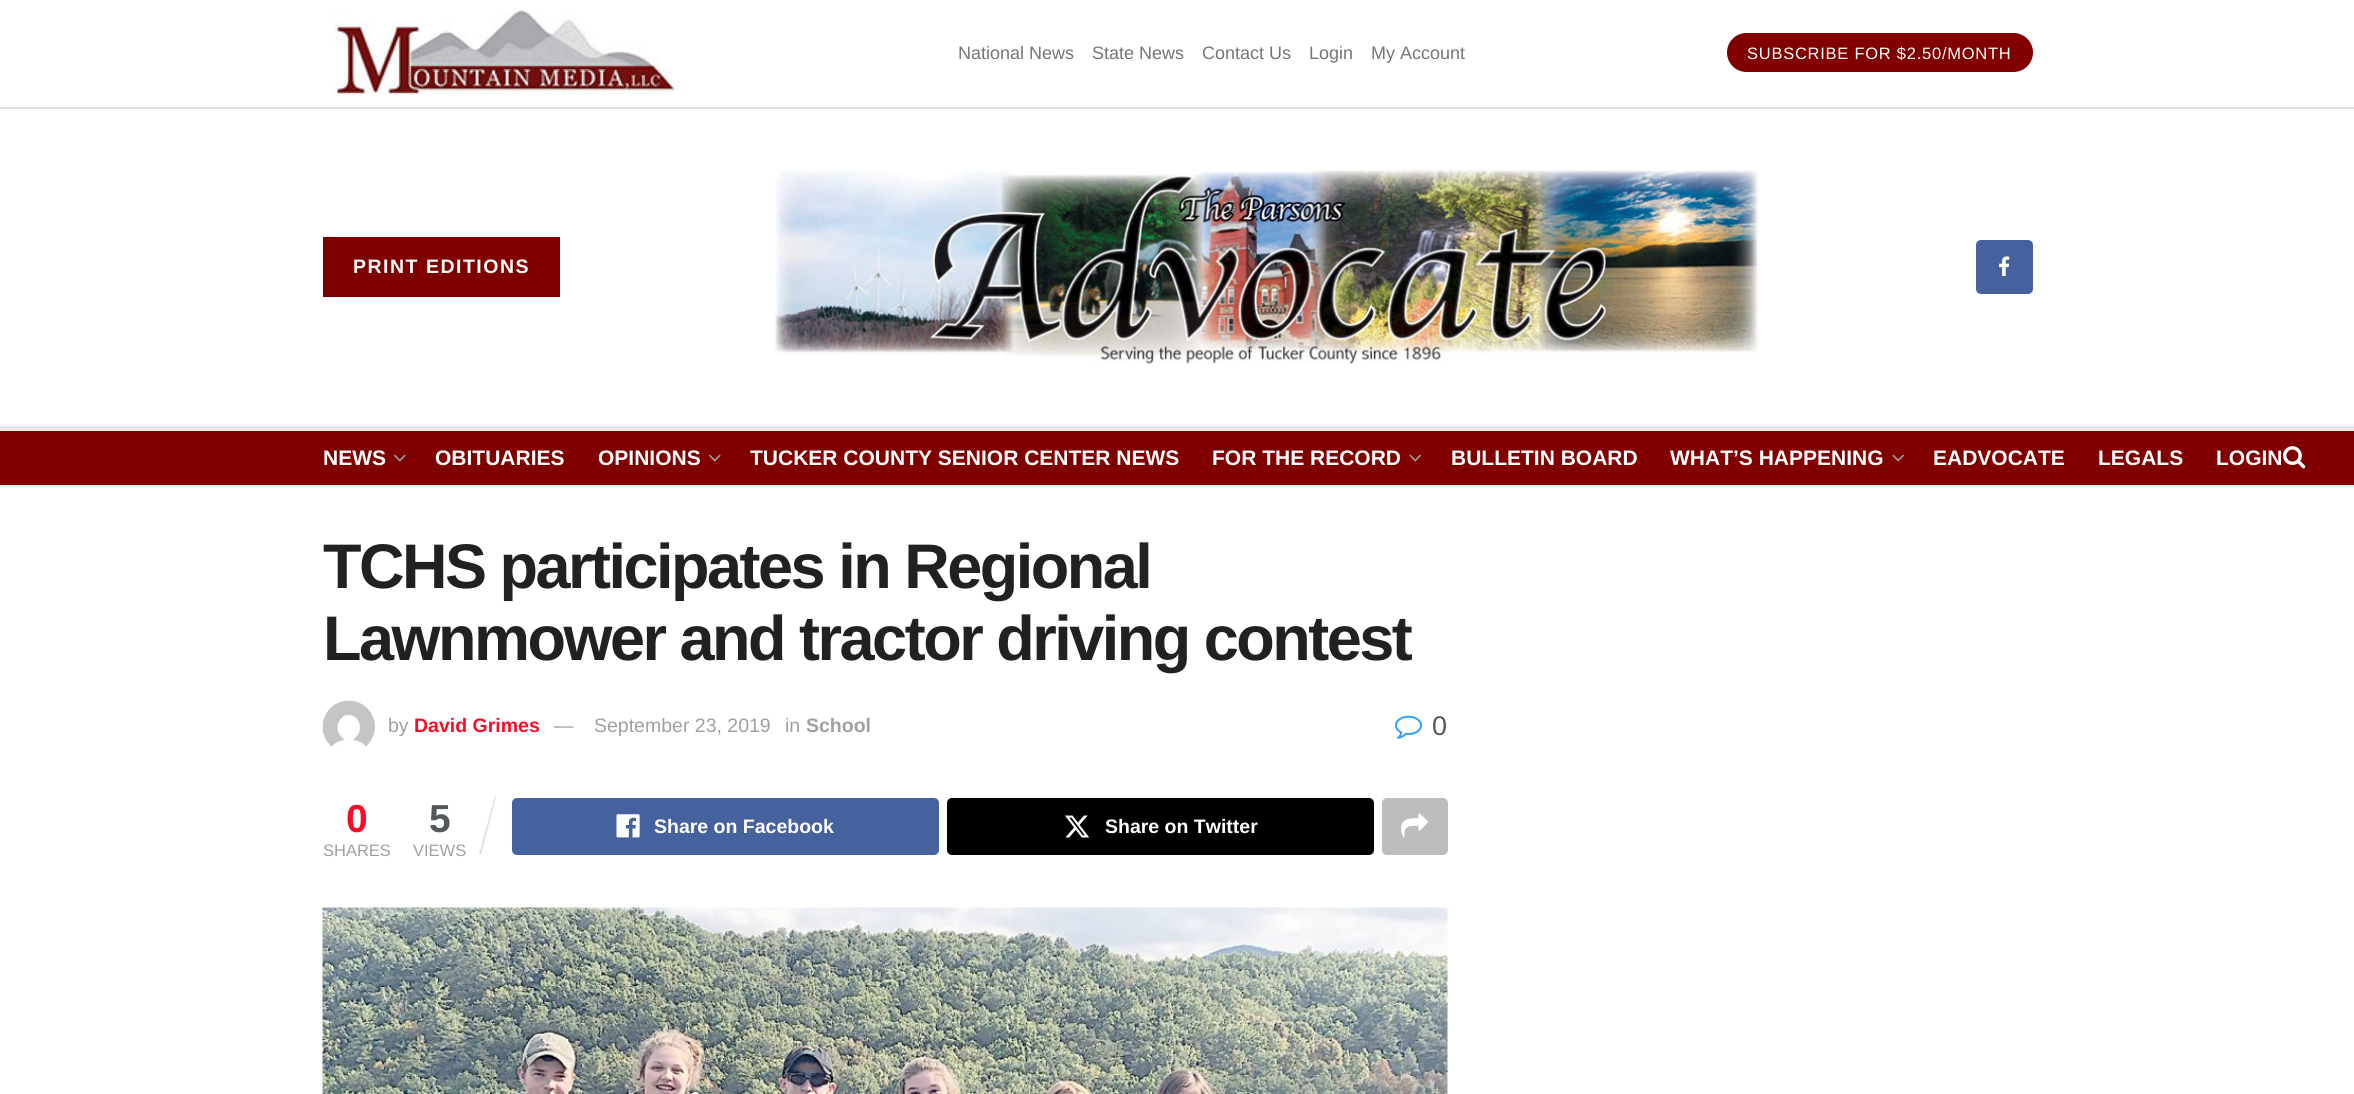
#include <cairo.h>
#include <math.h>
#include <stddef.h>


static void spaced_text(cairo_t *cr, double x, double y, const char *s, double letter, double word) {
    cairo_move_to(cr, x, y);
    while (*s) {
        char ch[5] = {0};
        int n = 0;
        do ch[n++] = *s++; while ((*s & 0xC0) == 0x80);
        cairo_show_text(cr, ch);
        cairo_rel_move_to(cr, letter + word * (*ch == ' '), 0);
    }
}

static void round_rect(cairo_t *cr, double x, double y, double w, double h, double r) {
    cairo_new_sub_path(cr);
    cairo_arc(cr, x + w - r, y + h - r, r, 0, M_PI / 2);
    cairo_arc(cr, x + r, y + h - r, r, M_PI / 2, M_PI);
    cairo_arc(cr, x + r, y + r, r, M_PI, 1.5 * M_PI);
    cairo_arc(cr, x + w - r, y + r, r, 1.5 * M_PI, 2 * M_PI);
    cairo_close_path(cr);
}

static void picture(cairo_t *cr, const char *path, double x, double y, double w, double h) {
    cairo_surface_t *image = cairo_image_surface_create_from_png(path);
    cairo_save(cr);
    cairo_set_source_surface(cr, image, x, y);
    cairo_rectangle(cr, x, y, w, h);
    cairo_fill(cr);
    cairo_restore(cr);
    cairo_surface_destroy(image);
}

int main(void) {
    cairo_surface_t *surface = cairo_image_surface_create(CAIRO_FORMAT_RGB24, 2354, 1094);
    cairo_t *cr = cairo_create(surface);
    cairo_font_options_t *options = cairo_font_options_create();
    cairo_font_options_set_hint_metrics(options, CAIRO_HINT_METRICS_OFF);
    cairo_font_options_set_hint_style(options, CAIRO_HINT_STYLE_NONE);
    cairo_set_font_options(cr, options);
    cairo_set_miter_limit(cr, 4);
    cairo_set_source_rgb(cr, 1, 1, 1);
    cairo_paint(cr);
    cairo_set_source_rgb(cr, 0.878, 0.878, 0.878);
    cairo_rectangle(cr, 0, 107, 2354, 2);
    cairo_fill(cr);
    picture(cr, "img1.png", 334, 9, 347, 86);
    cairo_select_font_face(cr, "Liberation Sans", CAIRO_FONT_SLANT_NORMAL, CAIRO_FONT_WEIGHT_NORMAL);
    cairo_set_font_size(cr, 18);
    cairo_set_source_rgb(cr, 0.459, 0.459, 0.459);
    cairo_move_to(cr, 958, 59);
    cairo_show_text(cr, "National News");
    cairo_move_to(cr, 1092, 59);
    cairo_show_text(cr, "State News");
    cairo_move_to(cr, 1202, 59);
    cairo_show_text(cr, "Contact Us");
    cairo_move_to(cr, 1309, 59);
    cairo_show_text(cr, "Login");
    cairo_move_to(cr, 1371, 59);
    cairo_show_text(cr, "My Account");
    cairo_set_source_rgb(cr, 0.502, 0, 0);
    round_rect(cr, 1727, 33, 306, 39, 19.5);
    cairo_fill(cr);
    cairo_set_font_size(cr, 16.5);
    cairo_set_source_rgb(cr, 1, 1, 1);
    spaced_text(cr, 1747, 59, "SUBSCRIBE FOR $2.50/MONTH", 0.75, 0);
    cairo_set_source_rgb(cr, 0.91, 0.91, 0.91);
    cairo_rectangle(cr, 0, 426, 2354, 5);
    cairo_fill(cr);
    cairo_set_source_rgb(cr, 0.502, 0, 0);
    cairo_rectangle(cr, 323, 237, 237, 60);
    cairo_fill(cr);
    cairo_select_font_face(cr, "Liberation Sans", CAIRO_FONT_SLANT_NORMAL, CAIRO_FONT_WEIGHT_BOLD);
    cairo_set_font_size(cr, 19.5);
    cairo_set_source_rgb(cr, 1, 1, 1);
    spaced_text(cr, 353, 273, "PRINT EDITIONS", 1.5, 0);
    picture(cr, "img2.png", 775, 169, 985, 195);
    cairo_set_source_rgb(cr, 0.271, 0.384, 0.624);
    round_rect(cr, 1976, 240, 57, 54, 5);
    cairo_fill(cr);
    picture(cr, "img3.png", 1999, 256, 11, 20);
    cairo_set_source_rgb(cr, 0.502, 0, 0);
    cairo_rectangle(cr, 0, 431, 2354, 54);
    cairo_fill(cr);
    cairo_set_source_rgb(cr, 0.91, 0.91, 0.91);
    cairo_rectangle(cr, 0, 485, 2354, 2);
    cairo_fill(cr);
    cairo_set_font_size(cr, 21);
    cairo_set_source_rgb(cr, 1, 1, 1);
    cairo_move_to(cr, 323, 465);
    cairo_show_text(cr, "NEWS");
    picture(cr, "img4.png", 394, 454, 12, 8);
    cairo_move_to(cr, 435, 465);
    cairo_show_text(cr, "OBITUARIES");
    cairo_move_to(cr, 598, 465);
    cairo_show_text(cr, "OPINIONS");
    picture(cr, "img4.png", 709, 454, 12, 8);
    cairo_move_to(cr, 750, 465);
    cairo_show_text(cr, "TUCKER COUNTY SENIOR CENTER NEWS");
    cairo_move_to(cr, 1212, 465);
    cairo_show_text(cr, "FOR THE RECORD");
    picture(cr, "img5.png", 1409, 454, 12, 8);
    cairo_move_to(cr, 1451, 465);
    cairo_show_text(cr, "BULLETIN BOARD");
    cairo_move_to(cr, 1670, 465);
    cairo_show_text(cr, "WHAT’S HAPPENING");
    picture(cr, "img5.png", 1892, 454, 12, 8);
    cairo_move_to(cr, 1933, 465);
    cairo_show_text(cr, "EADVOCATE");
    cairo_move_to(cr, 2098, 465);
    cairo_show_text(cr, "LEGALS");
    cairo_move_to(cr, 2216, 465);
    cairo_show_text(cr, "LOGIN");
    picture(cr, "img6.png", 2283, 446, 23, 23);
    cairo_set_font_size(cr, 63);
    cairo_set_source_rgb(cr, 0.129, 0.129, 0.129);
    spaced_text(cr, 323, 588, "TCHS participates in Regional", -2.5, 0);
    spaced_text(cr, 323, 660, "Lawnmower and tractor driving contest", -2.5, 0);
    picture(cr, "img7.png", 322, 700, 53, 47);
    cairo_select_font_face(cr, "Liberation Sans", CAIRO_FONT_SLANT_NORMAL, CAIRO_FONT_WEIGHT_NORMAL);
    cairo_set_font_size(cr, 19.5);
    cairo_set_source_rgb(cr, 0.627, 0.627, 0.627);
    cairo_move_to(cr, 388, 732);
    cairo_show_text(cr, "by");
    cairo_select_font_face(cr, "Liberation Sans", CAIRO_FONT_SLANT_NORMAL, CAIRO_FONT_WEIGHT_BOLD);
    cairo_set_source_rgb(cr, 0.969, 0.051, 0.157);
    cairo_move_to(cr, 414, 732);
    cairo_show_text(cr, "David Grimes");
    cairo_select_font_face(cr, "Liberation Sans", CAIRO_FONT_SLANT_NORMAL, CAIRO_FONT_WEIGHT_NORMAL);
    cairo_set_source_rgb(cr, 0.627, 0.627, 0.627);
    cairo_move_to(cr, 554, 732);
    cairo_show_text(cr, "—");
    cairo_move_to(cr, 594, 732);
    cairo_show_text(cr, "September 23, 2019");
    cairo_move_to(cr, 785, 732);
    cairo_show_text(cr, "in");
    cairo_select_font_face(cr, "Liberation Sans", CAIRO_FONT_SLANT_NORMAL, CAIRO_FONT_WEIGHT_BOLD);
    cairo_move_to(cr, 806, 732);
    cairo_show_text(cr, "School");
    picture(cr, "img8.png", 1395, 715, 27, 24);
    cairo_select_font_face(cr, "Liberation Sans", CAIRO_FONT_SLANT_NORMAL, CAIRO_FONT_WEIGHT_NORMAL);
    cairo_set_font_size(cr, 27);
    cairo_set_source_rgb(cr, 0.325, 0.345, 0.361);
    cairo_move_to(cr, 1432, 735);
    cairo_show_text(cr, "0");
    cairo_select_font_face(cr, "Liberation Sans", CAIRO_FONT_SLANT_NORMAL, CAIRO_FONT_WEIGHT_BOLD);
    cairo_set_font_size(cr, 39);
    cairo_set_source_rgb(cr, 0.969, 0.051, 0.157);
    cairo_move_to(cr, 346, 832);
    cairo_show_text(cr, "0");
    cairo_select_font_face(cr, "Liberation Sans", CAIRO_FONT_SLANT_NORMAL, CAIRO_FONT_WEIGHT_NORMAL);
    cairo_set_font_size(cr, 16.5);
    cairo_set_source_rgb(cr, 0.627, 0.627, 0.627);
    cairo_move_to(cr, 323, 856);
    cairo_show_text(cr, "SHARES");
    cairo_select_font_face(cr, "Liberation Sans", CAIRO_FONT_SLANT_NORMAL, CAIRO_FONT_WEIGHT_BOLD);
    cairo_set_font_size(cr, 39);
    cairo_set_source_rgb(cr, 0.325, 0.345, 0.361);
    cairo_move_to(cr, 429, 832);
    cairo_show_text(cr, "5");
    cairo_set_source_rgb(cr, 0.878, 0.878, 0.878);
    cairo_new_path(cr);
    cairo_move_to(cr, 495, 796);
    cairo_line_to(cr, 496, 797);
    cairo_line_to(cr, 481, 855);
    cairo_line_to(cr, 479, 854);
    cairo_close_path(cr);
    cairo_fill(cr);
    cairo_select_font_face(cr, "Liberation Sans", CAIRO_FONT_SLANT_NORMAL, CAIRO_FONT_WEIGHT_NORMAL);
    cairo_set_font_size(cr, 16.5);
    cairo_set_source_rgb(cr, 0.627, 0.627, 0.627);
    cairo_move_to(cr, 413, 856);
    cairo_show_text(cr, "VIEWS");
    cairo_set_source_rgb(cr, 0.271, 0.384, 0.624);
    round_rect(cr, 512, 798, 427, 57, 5);
    cairo_fill(cr);
    picture(cr, "img9.png", 616, 814, 24, 24);
    cairo_select_font_face(cr, "Liberation Sans", CAIRO_FONT_SLANT_NORMAL, CAIRO_FONT_WEIGHT_BOLD);
    cairo_set_font_size(cr, 19.5);
    cairo_set_source_rgb(cr, 1, 1, 1);
    cairo_move_to(cr, 654, 833);
    cairo_show_text(cr, "Share on Facebook");
    cairo_set_source_rgb(cr, 0, 0, 0);
    round_rect(cr, 947, 798, 427, 57, 5);
    cairo_fill(cr);
    picture(cr, "img10.png", 1065, 815, 24, 23);
    cairo_set_source_rgb(cr, 1, 1, 1);
    cairo_move_to(cr, 1105, 833);
    cairo_show_text(cr, "Share on Twitter");
    cairo_set_source_rgb(cr, 0.741, 0.741, 0.741);
    round_rect(cr, 1382, 798, 66, 57, 5);
    cairo_fill(cr);
    picture(cr, "img11.png", 1401, 813, 27, 25);
    picture(cr, "img12.png", 322, 907, 1126, 187);
    cairo_surface_write_to_png(surface, "page.png");
    cairo_font_options_destroy(options);
    cairo_destroy(cr);
    cairo_surface_destroy(surface);
    return 0;
}
